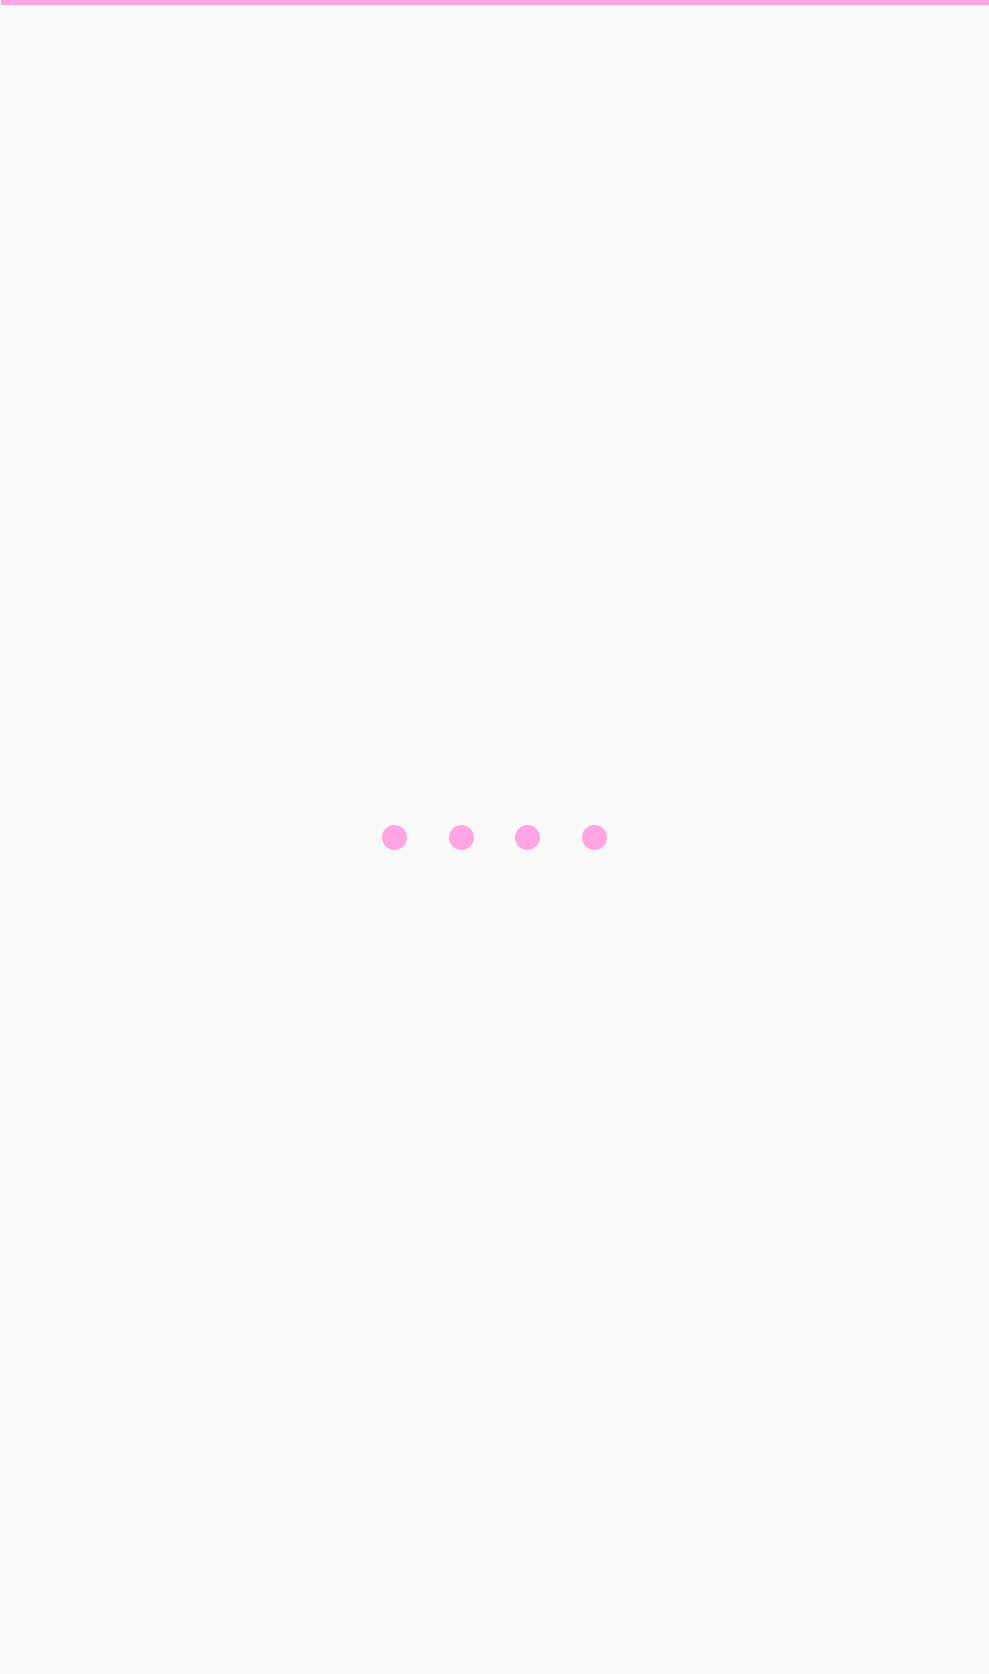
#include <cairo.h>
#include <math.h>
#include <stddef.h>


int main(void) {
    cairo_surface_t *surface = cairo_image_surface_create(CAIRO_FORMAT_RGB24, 989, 1674);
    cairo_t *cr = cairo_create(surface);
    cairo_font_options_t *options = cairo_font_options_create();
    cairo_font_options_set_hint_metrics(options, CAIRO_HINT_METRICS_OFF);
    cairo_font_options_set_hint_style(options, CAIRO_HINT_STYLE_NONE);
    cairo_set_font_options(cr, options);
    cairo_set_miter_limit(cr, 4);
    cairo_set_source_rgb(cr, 0.976, 0.976, 0.976);
    cairo_paint(cr);
    cairo_set_source_rgb(cr, 1, 0.647, 0.89);
    cairo_rectangle(cr, 1, 0, 988, 5);
    cairo_fill(cr);
    cairo_arc(cr, 394.5, 837.5, 12.5, 0, 2 * M_PI);
    cairo_fill(cr);
    cairo_arc(cr, 461.5, 837.5, 12.5, 0, 2 * M_PI);
    cairo_fill(cr);
    cairo_arc(cr, 527.5, 837.5, 12.5, 0, 2 * M_PI);
    cairo_fill(cr);
    cairo_arc(cr, 594.5, 837.5, 12.5, 0, 2 * M_PI);
    cairo_fill(cr);
    cairo_surface_write_to_png(surface, "page.png");
    cairo_font_options_destroy(options);
    cairo_destroy(cr);
    cairo_surface_destroy(surface);
    return 0;
}
